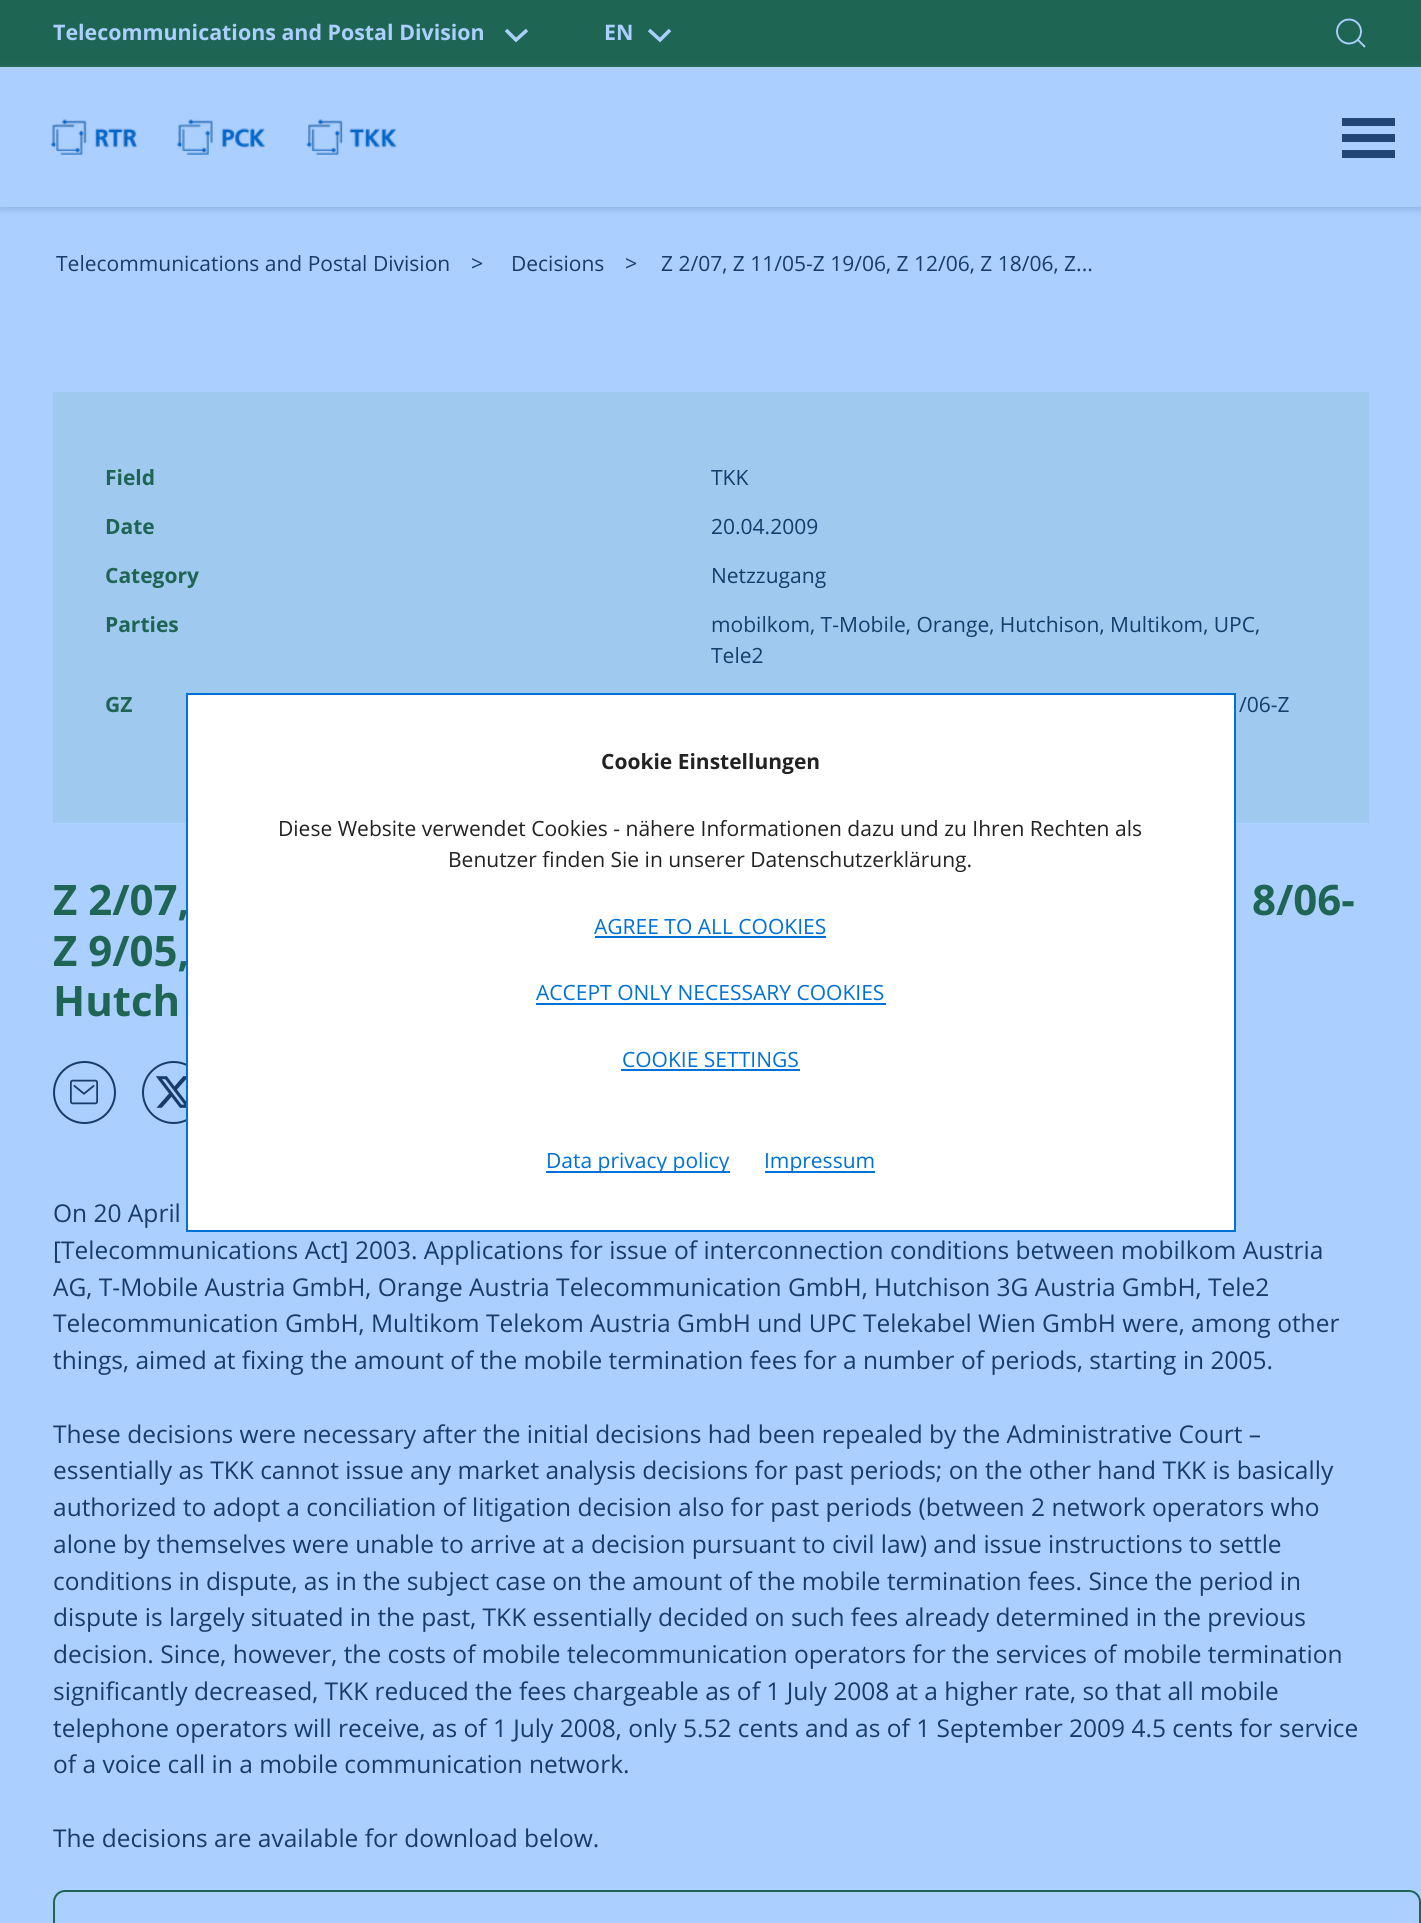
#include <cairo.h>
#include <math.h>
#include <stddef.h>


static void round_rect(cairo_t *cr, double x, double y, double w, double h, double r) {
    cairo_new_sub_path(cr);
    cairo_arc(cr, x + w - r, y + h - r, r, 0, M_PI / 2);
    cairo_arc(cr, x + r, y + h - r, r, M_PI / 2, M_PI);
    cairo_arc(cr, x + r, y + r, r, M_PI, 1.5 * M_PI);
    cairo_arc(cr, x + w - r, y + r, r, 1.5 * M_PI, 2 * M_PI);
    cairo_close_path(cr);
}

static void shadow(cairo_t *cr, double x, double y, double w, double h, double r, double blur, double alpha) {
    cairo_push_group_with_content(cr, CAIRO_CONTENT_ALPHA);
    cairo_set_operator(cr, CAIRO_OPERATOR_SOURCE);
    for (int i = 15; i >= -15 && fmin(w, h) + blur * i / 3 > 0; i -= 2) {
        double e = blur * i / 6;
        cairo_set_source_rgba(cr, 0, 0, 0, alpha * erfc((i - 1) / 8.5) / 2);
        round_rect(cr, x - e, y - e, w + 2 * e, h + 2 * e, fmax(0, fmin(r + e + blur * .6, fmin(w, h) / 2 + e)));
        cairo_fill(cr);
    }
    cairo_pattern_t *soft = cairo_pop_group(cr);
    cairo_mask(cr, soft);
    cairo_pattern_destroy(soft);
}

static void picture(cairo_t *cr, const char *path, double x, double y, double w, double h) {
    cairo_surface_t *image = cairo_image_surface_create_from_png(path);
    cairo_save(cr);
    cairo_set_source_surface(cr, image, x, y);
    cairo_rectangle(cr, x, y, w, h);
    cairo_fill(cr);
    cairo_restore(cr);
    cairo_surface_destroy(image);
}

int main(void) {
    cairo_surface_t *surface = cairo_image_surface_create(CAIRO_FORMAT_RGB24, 1421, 1923);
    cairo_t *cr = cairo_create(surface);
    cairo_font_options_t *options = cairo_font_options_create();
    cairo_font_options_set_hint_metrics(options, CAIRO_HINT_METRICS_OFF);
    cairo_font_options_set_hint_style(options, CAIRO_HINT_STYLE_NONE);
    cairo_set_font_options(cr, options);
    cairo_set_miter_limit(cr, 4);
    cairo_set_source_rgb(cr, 0.671, 0.816, 1);
    cairo_paint(cr);
    cairo_set_source_rgb(cr, 0.122, 0.396, 0.329);
    cairo_rectangle(cr, 0, 0, 1421, 67);
    cairo_fill(cr);
    cairo_select_font_face(cr, "Open Sans", CAIRO_FONT_SLANT_NORMAL, CAIRO_FONT_WEIGHT_BOLD);
    cairo_set_font_size(cr, 21.4);
    cairo_set_source_rgb(cr, 0.671, 0.816, 1);
    cairo_move_to(cr, 53, 40);
    cairo_show_text(cr, "Telecommunications and Postal Division");
    cairo_new_path(cr);
    cairo_move_to(cr, 527, 30);
    cairo_line_to(cr, 516, 40);
    cairo_line_to(cr, 506, 30);
    cairo_set_line_width(cr, 3.5);
    cairo_stroke(cr);
    cairo_move_to(cr, 604, 40);
    cairo_show_text(cr, "EN");
    cairo_new_path(cr);
    cairo_move_to(cr, 670, 30);
    cairo_line_to(cr, 660, 40);
    cairo_line_to(cr, 649, 30);
    cairo_stroke(cr);
    cairo_arc(cr, 1349, 31.5, 12, 0, 2 * M_PI);
    cairo_set_line_width(cr, 1.9);
    cairo_stroke(cr);
    cairo_new_path(cr);
    cairo_move_to(cr, 1358, 40);
    cairo_line_to(cr, 1365, 47);
    cairo_close_path(cr);
    cairo_stroke(cr);
    cairo_set_source_rgb(cr, 0.451, 0.596, 0.78);
    shadow(cr, 0, 70, 1421, 140, 0, 3.5, 0.5);
    cairo_set_source_rgb(cr, 0.671, 0.816, 1);
    cairo_rectangle(cr, 0, 67, 1421, 140);
    cairo_fill(cr);
    picture(cr, "img1.png", 51, 119, 87, 36);
    picture(cr, "img2.png", 177, 119, 89, 36);
    picture(cr, "img3.png", 306, 119, 91, 36);
    cairo_set_source_rgb(cr, 0.133, 0.278, 0.463);
    cairo_rectangle(cr, 1342, 118, 53, 8);
    cairo_fill(cr);
    cairo_rectangle(cr, 1342, 134, 53, 8);
    cairo_fill(cr);
    cairo_rectangle(cr, 1342, 150, 53, 8);
    cairo_fill(cr);
    cairo_select_font_face(cr, "Open Sans", CAIRO_FONT_SLANT_NORMAL, CAIRO_FONT_WEIGHT_NORMAL);
    cairo_set_font_size(cr, 21);
    cairo_set_source_rgb(cr, 0.09, 0.235, 0.42);
    cairo_move_to(cr, 56, 271);
    cairo_show_text(cr, "Telecommunications and Postal Division");
    cairo_set_font_size(cr, 21.4);
    cairo_move_to(cr, 471, 271);
    cairo_show_text(cr, ">");
    cairo_set_font_size(cr, 21);
    cairo_move_to(cr, 511, 271);
    cairo_show_text(cr, "Decisions");
    cairo_set_font_size(cr, 21.4);
    cairo_move_to(cr, 625, 271);
    cairo_show_text(cr, ">");
    cairo_set_font_size(cr, 21);
    cairo_move_to(cr, 661, 271);
    cairo_show_text(cr, "Z 2/07, Z 11/05-Z 19/06, Z 12/06, Z 18/06, Z...");
    cairo_set_source_rgb(cr, 0.624, 0.788, 0.933);
    cairo_rectangle(cr, 53, 392, 1316, 431);
    cairo_fill(cr);
    cairo_select_font_face(cr, "Open Sans", CAIRO_FONT_SLANT_NORMAL, CAIRO_FONT_WEIGHT_BOLD);
    cairo_set_source_rgb(cr, 0.122, 0.396, 0.329);
    cairo_move_to(cr, 105, 485);
    cairo_show_text(cr, "Field");
    cairo_select_font_face(cr, "Open Sans", CAIRO_FONT_SLANT_NORMAL, CAIRO_FONT_WEIGHT_NORMAL);
    cairo_set_source_rgb(cr, 0.09, 0.235, 0.42);
    cairo_move_to(cr, 711, 485);
    cairo_show_text(cr, "TKK");
    cairo_select_font_face(cr, "Open Sans", CAIRO_FONT_SLANT_NORMAL, CAIRO_FONT_WEIGHT_BOLD);
    cairo_set_source_rgb(cr, 0.122, 0.396, 0.329);
    cairo_move_to(cr, 105, 534);
    cairo_show_text(cr, "Date");
    cairo_select_font_face(cr, "Open Sans", CAIRO_FONT_SLANT_NORMAL, CAIRO_FONT_WEIGHT_NORMAL);
    cairo_set_source_rgb(cr, 0.09, 0.235, 0.42);
    cairo_move_to(cr, 711, 534);
    cairo_show_text(cr, "20.04.2009");
    cairo_select_font_face(cr, "Open Sans", CAIRO_FONT_SLANT_NORMAL, CAIRO_FONT_WEIGHT_BOLD);
    cairo_set_source_rgb(cr, 0.122, 0.396, 0.329);
    cairo_move_to(cr, 105, 583);
    cairo_show_text(cr, "Category");
    cairo_select_font_face(cr, "Open Sans", CAIRO_FONT_SLANT_NORMAL, CAIRO_FONT_WEIGHT_NORMAL);
    cairo_set_source_rgb(cr, 0.09, 0.235, 0.42);
    cairo_move_to(cr, 711, 583);
    cairo_show_text(cr, "Netzzugang");
    cairo_select_font_face(cr, "Open Sans", CAIRO_FONT_SLANT_NORMAL, CAIRO_FONT_WEIGHT_BOLD);
    cairo_set_source_rgb(cr, 0.122, 0.396, 0.329);
    cairo_move_to(cr, 105, 632);
    cairo_show_text(cr, "Parties");
    cairo_select_font_face(cr, "Open Sans", CAIRO_FONT_SLANT_NORMAL, CAIRO_FONT_WEIGHT_NORMAL);
    cairo_set_source_rgb(cr, 0.09, 0.235, 0.42);
    cairo_move_to(cr, 711, 632);
    cairo_show_text(cr, "mobilkom, T-Mobile, Orange, Hutchison, Multikom, UPC,");
    cairo_move_to(cr, 711, 663);
    cairo_show_text(cr, "Tele2");
    cairo_select_font_face(cr, "Open Sans", CAIRO_FONT_SLANT_NORMAL, CAIRO_FONT_WEIGHT_BOLD);
    cairo_set_source_rgb(cr, 0.122, 0.396, 0.329);
    cairo_move_to(cr, 105, 712);
    cairo_show_text(cr, "GZ");
    cairo_select_font_face(cr, "Open Sans", CAIRO_FONT_SLANT_NORMAL, CAIRO_FONT_WEIGHT_NORMAL);
    cairo_set_source_rgb(cr, 0.09, 0.235, 0.42);
    cairo_move_to(cr, 1239, 712);
    cairo_show_text(cr, "/06-Z");
    cairo_select_font_face(cr, "Open Sans", CAIRO_FONT_SLANT_NORMAL, CAIRO_FONT_WEIGHT_BOLD);
    cairo_set_font_size(cr, 42);
    cairo_set_source_rgb(cr, 0.122, 0.396, 0.329);
    cairo_move_to(cr, 53, 915);
    cairo_show_text(cr, "Z 2/07,");
    cairo_move_to(cr, 1252, 915);
    cairo_show_text(cr, "8/06-");
    cairo_move_to(cr, 53, 966);
    cairo_show_text(cr, "Z 9/05,");
    cairo_move_to(cr, 53, 1016);
    cairo_show_text(cr, "Hutch");
    cairo_new_path(cr);
    cairo_arc(cr, 84.5, 1092.5, 30.5, 0, 2 * M_PI);
    cairo_set_source_rgb(cr, 0.09, 0.235, 0.42);
    cairo_set_line_width(cr, 2);
    cairo_stroke(cr);
    picture(cr, "img4.png", 70, 1079, 28, 26);
    cairo_arc(cr, 173.5, 1092.5, 30.5, 0, 2 * M_PI);
    cairo_stroke(cr);
    picture(cr, "img5.png", 156, 1076, 30, 32);
    cairo_select_font_face(cr, "Open Sans", CAIRO_FONT_SLANT_NORMAL, CAIRO_FONT_WEIGHT_NORMAL);
    cairo_set_font_size(cr, 24.5);
    cairo_move_to(cr, 53, 1222);
    cairo_show_text(cr, "On 20 April");
    cairo_move_to(cr, 53, 1259);
    cairo_show_text(cr, "[Telecommunications Act] 2003. Applications for issue of interconnection conditions between mobilkom Austria");
    cairo_move_to(cr, 53, 1296);
    cairo_show_text(cr, "AG, T-Mobile Austria GmbH, Orange Austria Telecommunication GmbH, Hutchison 3G Austria GmbH, Tele2");
    cairo_move_to(cr, 53, 1332);
    cairo_show_text(cr, "Telecommunication GmbH, Multikom Telekom Austria GmbH und UPC Telekabel Wien GmbH were, among other");
    cairo_move_to(cr, 53, 1369);
    cairo_show_text(cr, "things, aimed at fixing the amount of the mobile termination fees for a number of periods, starting in 2005.");
    cairo_move_to(cr, 53, 1443);
    cairo_show_text(cr, "These decisions were necessary after the initial decisions had been repealed by the Administrative Court –");
    cairo_move_to(cr, 53, 1479);
    cairo_show_text(cr, "essentially as TKK cannot issue any market analysis decisions for past periods; on the other hand TKK is basically");
    cairo_move_to(cr, 53, 1516);
    cairo_show_text(cr, "authorized to adopt a conciliation of litigation decision also for past periods (between 2 network operators who");
    cairo_move_to(cr, 53, 1553);
    cairo_show_text(cr, "alone by themselves were unable to arrive at a decision pursuant to civil law) and issue instructions to settle");
    cairo_move_to(cr, 53, 1590);
    cairo_show_text(cr, "conditions in dispute, as in the subject case on the amount of the mobile termination fees. Since the period in");
    cairo_move_to(cr, 53, 1626);
    cairo_show_text(cr, "dispute is largely situated in the past, TKK essentially decided on such fees already determined in the previous");
    cairo_move_to(cr, 53, 1663);
    cairo_show_text(cr, "decision. Since, however, the costs of mobile telecommunication operators for the services of mobile termination");
    cairo_move_to(cr, 53, 1700);
    cairo_show_text(cr, "significantly decreased, TKK reduced the fees chargeable as of 1 July 2008 at a higher rate, so that all mobile");
    cairo_move_to(cr, 53, 1737);
    cairo_show_text(cr, "telephone operators will receive, as of 1 July 2008, only 5.52 cents and as of 1 September 2009 4.5 cents for service");
    cairo_move_to(cr, 53, 1773);
    cairo_show_text(cr, "of a voice call in a mobile communication network.");
    cairo_move_to(cr, 53, 1847);
    cairo_show_text(cr, "The decisions are available for download below.");
    round_rect(cr, 54, 1891, 1366, 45, 11);
    cairo_set_source_rgb(cr, 0.122, 0.396, 0.329);
    cairo_stroke(cr);
    cairo_set_source_rgb(cr, 1, 1, 1);
    cairo_rectangle(cr, 187, 694, 1048, 537);
    cairo_fill_preserve(cr);
    cairo_set_source_rgb(cr, 0, 0.443, 0.843);
    cairo_stroke(cr);
    cairo_select_font_face(cr, "Open Sans", CAIRO_FONT_SLANT_NORMAL, CAIRO_FONT_WEIGHT_BOLD);
    cairo_set_font_size(cr, 21);
    cairo_set_source_rgb(cr, 0.133, 0.133, 0.133);
    cairo_move_to(cr, 601, 769);
    cairo_show_text(cr, "Cookie Einstellungen");
    cairo_select_font_face(cr, "Open Sans", CAIRO_FONT_SLANT_NORMAL, CAIRO_FONT_WEIGHT_NORMAL);
    cairo_move_to(cr, 278, 836);
    cairo_show_text(cr, "Diese Website verwendet Cookies - nähere Informationen dazu und zu Ihren Rechten als");
    cairo_move_to(cr, 448, 867);
    cairo_show_text(cr, "Benutzer finden Sie in unserer Datenschutzerklärung.");
    cairo_set_source_rgb(cr, 0, 0.443, 0.843);
    cairo_move_to(cr, 594, 934);
    cairo_show_text(cr, "AGREE TO ALL COOKIES");
    cairo_rectangle(cr, 595, 936, 231, 2);
    cairo_fill(cr);
    cairo_move_to(cr, 536, 1000);
    cairo_show_text(cr, "ACCEPT ONLY NECESSARY COOKIES");
    cairo_rectangle(cr, 536, 1003, 350, 2);
    cairo_fill(cr);
    cairo_move_to(cr, 622, 1067);
    cairo_show_text(cr, "COOKIE SETTINGS");
    cairo_rectangle(cr, 621, 1069, 179, 2);
    cairo_fill(cr);
    cairo_rectangle(cr, 546, 1171, 184, 2);
    cairo_fill(cr);
    cairo_move_to(cr, 546, 1168);
    cairo_show_text(cr, "Data privacy policy");
    cairo_rectangle(cr, 765, 1171, 110, 2);
    cairo_fill(cr);
    cairo_move_to(cr, 764, 1168);
    cairo_show_text(cr, "Impressum");
    cairo_surface_write_to_png(surface, "page.png");
    cairo_font_options_destroy(options);
    cairo_destroy(cr);
    cairo_surface_destroy(surface);
    return 0;
}
